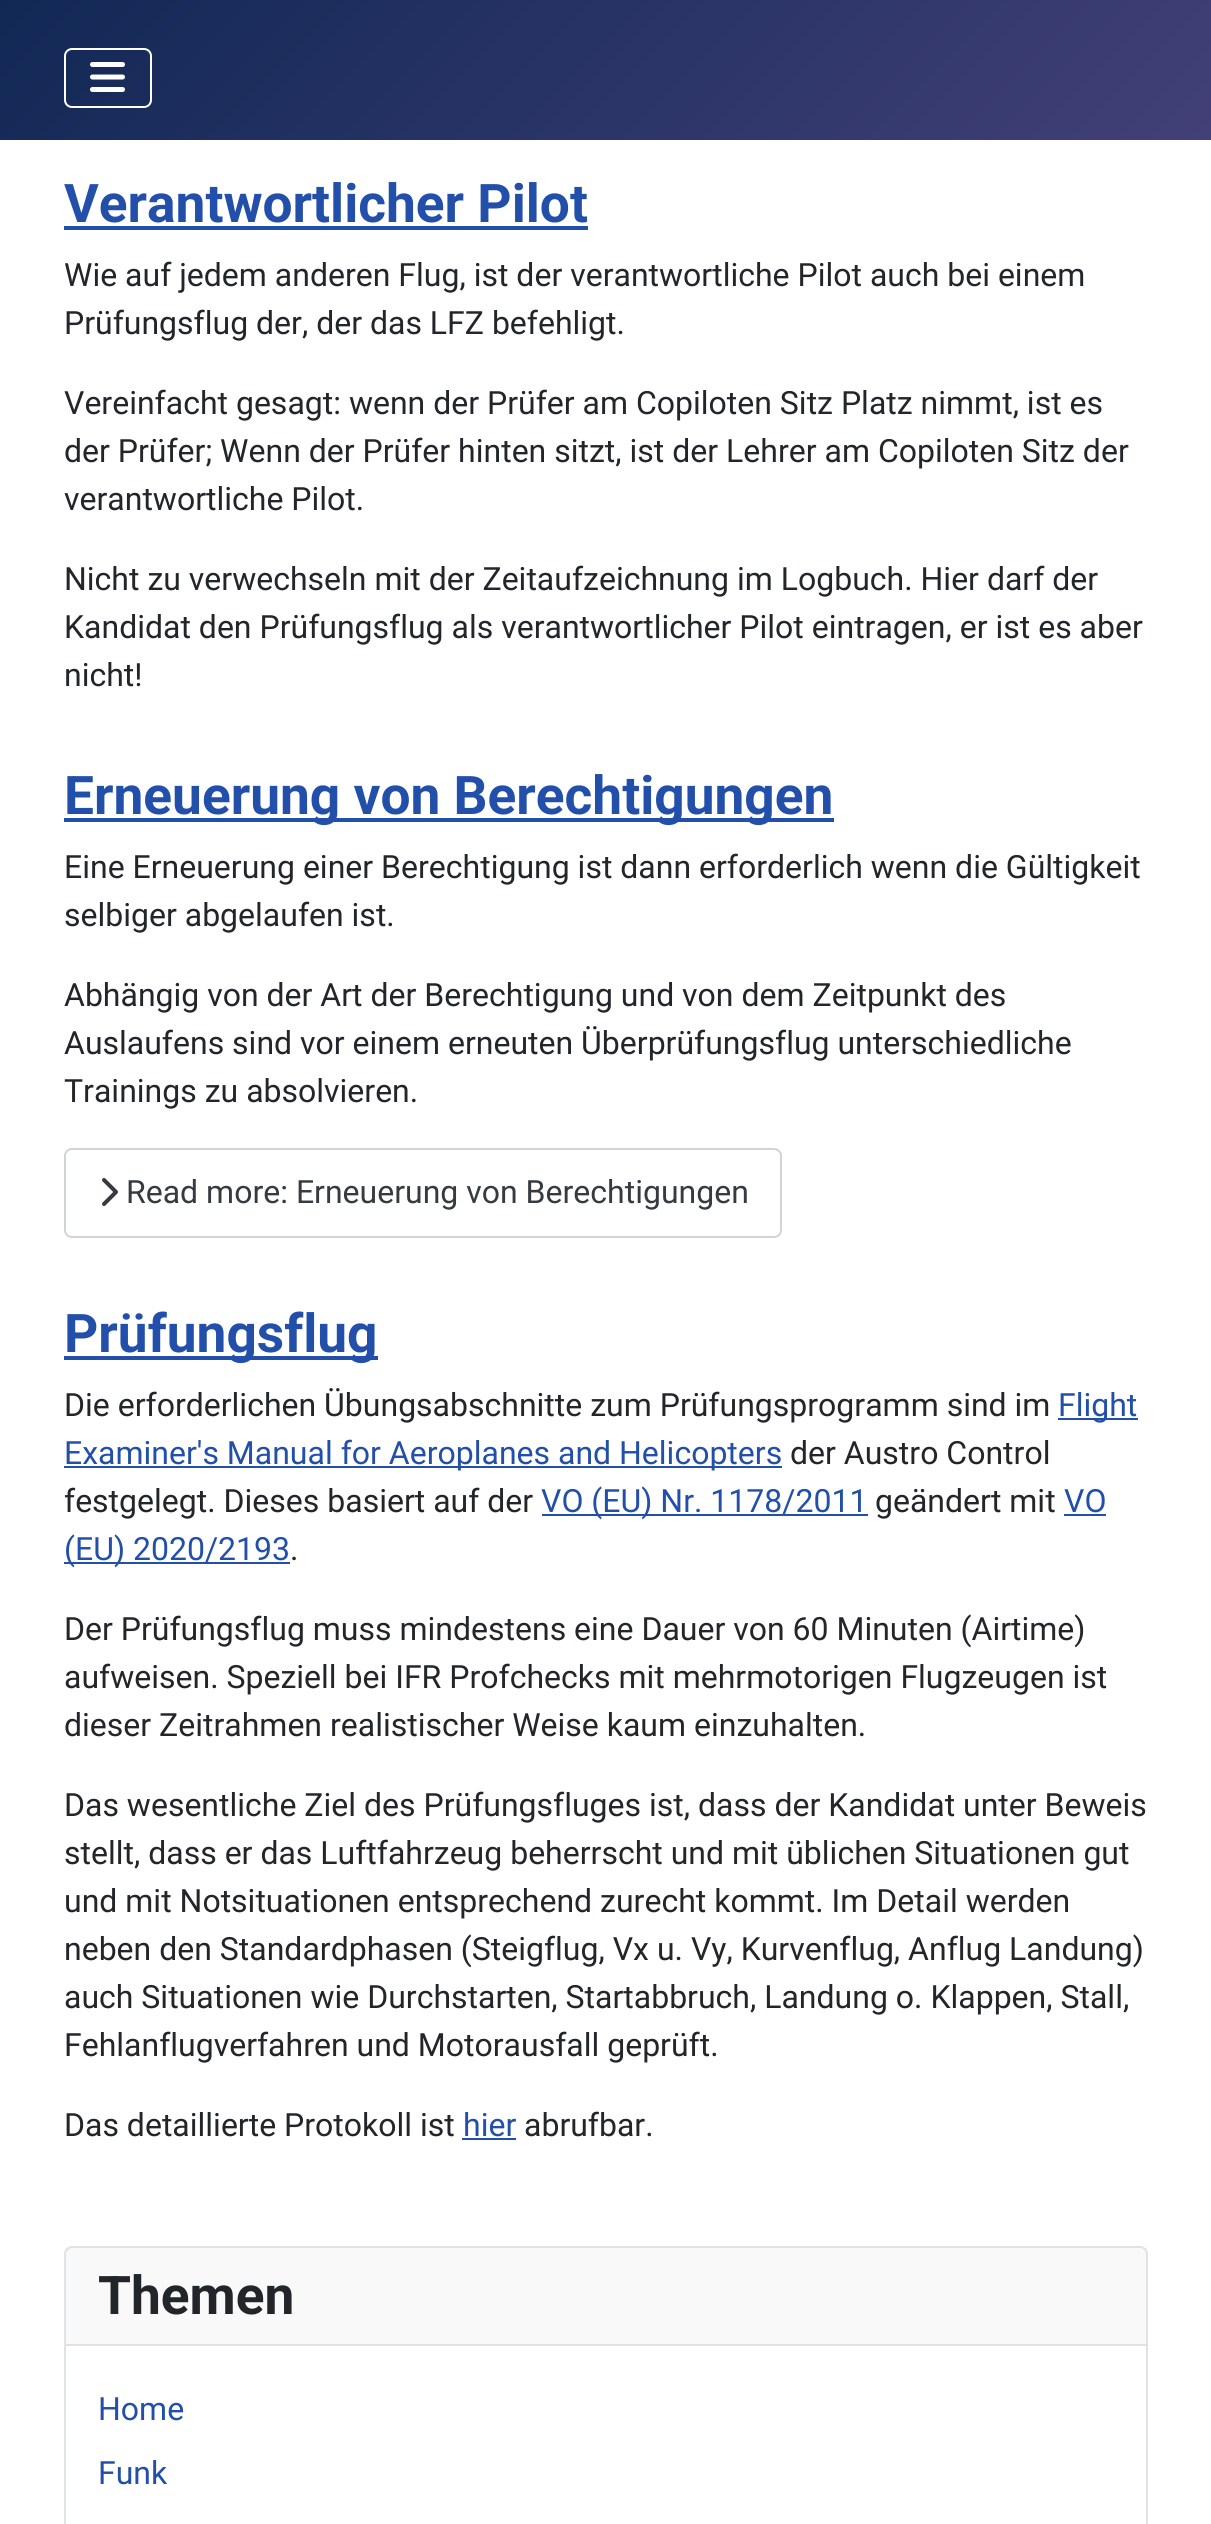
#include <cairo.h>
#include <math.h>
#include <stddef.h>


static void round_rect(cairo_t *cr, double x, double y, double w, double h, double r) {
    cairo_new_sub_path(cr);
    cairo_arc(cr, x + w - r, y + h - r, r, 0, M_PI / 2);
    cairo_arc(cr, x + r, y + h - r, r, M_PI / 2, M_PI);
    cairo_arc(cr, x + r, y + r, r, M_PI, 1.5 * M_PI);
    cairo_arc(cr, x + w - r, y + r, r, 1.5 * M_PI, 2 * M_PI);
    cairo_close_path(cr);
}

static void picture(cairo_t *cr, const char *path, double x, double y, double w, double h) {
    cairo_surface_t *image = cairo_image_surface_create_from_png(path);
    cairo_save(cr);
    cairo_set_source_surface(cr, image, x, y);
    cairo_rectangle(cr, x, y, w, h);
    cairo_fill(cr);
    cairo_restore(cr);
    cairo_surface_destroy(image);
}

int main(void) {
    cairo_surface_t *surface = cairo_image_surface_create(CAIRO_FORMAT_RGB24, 1211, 2524);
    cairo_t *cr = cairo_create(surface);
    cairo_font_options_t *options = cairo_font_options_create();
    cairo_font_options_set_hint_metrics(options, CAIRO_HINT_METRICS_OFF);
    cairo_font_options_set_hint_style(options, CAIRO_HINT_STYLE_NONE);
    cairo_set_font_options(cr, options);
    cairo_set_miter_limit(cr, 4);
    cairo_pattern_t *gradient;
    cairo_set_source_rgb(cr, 1, 1, 1);
    cairo_paint(cr);
    gradient = cairo_pattern_create_linear(268, -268, 944, 408);
    cairo_pattern_add_color_stop_rgba(gradient, 0, 0.067, 0.157, 0.333, 1);
    cairo_pattern_add_color_stop_rgba(gradient, 1, 0.259, 0.251, 0.467, 1);
    cairo_set_source(cr, gradient);
    cairo_pattern_destroy(gradient);
    cairo_rectangle(cr, 0, 0, 1211, 140);
    cairo_fill(cr);
    round_rect(cr, 65, 49, 86, 58, 7);
    cairo_set_source_rgb(cr, 1, 1, 1);
    cairo_stroke(cr);
    picture(cr, "img1.png", 90, 62, 35, 30);
    cairo_select_font_face(cr, "Roboto", CAIRO_FONT_SLANT_NORMAL, CAIRO_FONT_WEIGHT_BOLD);
    cairo_set_font_size(cr, 53.25);
    cairo_set_source_rgb(cr, 0.133, 0.31, 0.667);
    cairo_move_to(cr, 64, 222);
    cairo_show_text(cr, "Verantwortlicher Pilot");
    cairo_rectangle(cr, 64, 226, 524, 4);
    cairo_fill(cr);
    cairo_select_font_face(cr, "Roboto", CAIRO_FONT_SLANT_NORMAL, CAIRO_FONT_WEIGHT_NORMAL);
    cairo_set_font_size(cr, 32);
    cairo_set_source_rgb(cr, 0.133, 0.149, 0.165);
    cairo_move_to(cr, 64, 286);
    cairo_show_text(cr, "Wie auf jedem anderen Flug, ist der verantwortliche Pilot auch bei einem");
    cairo_move_to(cr, 64, 334);
    cairo_show_text(cr, "Prüfungsflug der, der das LFZ befehligt.");
    cairo_move_to(cr, 64, 414);
    cairo_show_text(cr, "Vereinfacht gesagt: wenn der Prüfer am Copiloten Sitz Platz nimmt, ist es");
    cairo_move_to(cr, 64, 462);
    cairo_show_text(cr, "der Prüfer; Wenn der Prüfer hinten sitzt, ist der Lehrer am Copiloten Sitz der");
    cairo_move_to(cr, 64, 510);
    cairo_show_text(cr, "verantwortliche Pilot.");
    cairo_move_to(cr, 64, 590);
    cairo_show_text(cr, "Nicht zu verwechseln mit der Zeitaufzeichnung im Logbuch. Hier darf der");
    cairo_move_to(cr, 64, 638);
    cairo_show_text(cr, "Kandidat den Prüfungsflug als verantwortlicher Pilot eintragen, er ist es aber");
    cairo_move_to(cr, 64, 686);
    cairo_show_text(cr, "nicht!");
    cairo_set_source_rgb(cr, 0.133, 0.31, 0.667);
    cairo_rectangle(cr, 64, 818, 770, 4);
    cairo_fill(cr);
    cairo_select_font_face(cr, "Roboto", CAIRO_FONT_SLANT_NORMAL, CAIRO_FONT_WEIGHT_BOLD);
    cairo_set_font_size(cr, 53.25);
    cairo_move_to(cr, 64, 814);
    cairo_show_text(cr, "Erneuerung von Berechtigungen");
    cairo_select_font_face(cr, "Roboto", CAIRO_FONT_SLANT_NORMAL, CAIRO_FONT_WEIGHT_NORMAL);
    cairo_set_font_size(cr, 32);
    cairo_set_source_rgb(cr, 0.133, 0.149, 0.165);
    cairo_move_to(cr, 64, 878);
    cairo_show_text(cr, "Eine Erneuerung einer Berechtigung ist dann erforderlich wenn die Gültigkeit");
    cairo_move_to(cr, 64, 926);
    cairo_show_text(cr, "selbiger abgelaufen ist.");
    cairo_move_to(cr, 64, 1006);
    cairo_show_text(cr, "Abhängig von der Art der Berechtigung und von dem Zeitpunkt des");
    cairo_move_to(cr, 64, 1054);
    cairo_show_text(cr, "Auslaufens sind vor einem erneuten Überprüfungsflug unterschiedliche");
    cairo_move_to(cr, 64, 1102);
    cairo_show_text(cr, "Trainings zu absolvieren.");
    round_rect(cr, 65, 1149, 716, 88, 7);
    cairo_set_source_rgb(cr, 0.808, 0.831, 0.855);
    cairo_stroke(cr);
    picture(cr, "img2.png", 102, 1178, 16, 28);
    cairo_set_source_rgb(cr, 0.208, 0.231, 0.255);
    cairo_move_to(cr, 126, 1203);
    cairo_show_text(cr, "Read more: Erneuerung von Berechtigungen");
    cairo_set_source_rgb(cr, 0.133, 0.31, 0.667);
    cairo_rectangle(cr, 64, 1356, 314, 4);
    cairo_fill(cr);
    cairo_select_font_face(cr, "Roboto", CAIRO_FONT_SLANT_NORMAL, CAIRO_FONT_WEIGHT_BOLD);
    cairo_set_font_size(cr, 53.25);
    cairo_move_to(cr, 64, 1352);
    cairo_show_text(cr, "Prüfungsflug");
    cairo_select_font_face(cr, "Roboto", CAIRO_FONT_SLANT_NORMAL, CAIRO_FONT_WEIGHT_NORMAL);
    cairo_set_font_size(cr, 32);
    cairo_set_source_rgb(cr, 0.133, 0.149, 0.165);
    cairo_move_to(cr, 64, 1416);
    cairo_show_text(cr, "Die erforderlichen Übungsabschnitte zum Prüfungsprogramm sind im");
    cairo_set_source_rgb(cr, 0.133, 0.31, 0.667);
    cairo_rectangle(cr, 1058, 1418, 80, 2);
    cairo_fill(cr);
    cairo_move_to(cr, 1058, 1416);
    cairo_show_text(cr, "Flight");
    cairo_rectangle(cr, 64, 1466, 718, 2);
    cairo_fill(cr);
    cairo_move_to(cr, 64, 1464);
    cairo_show_text(cr, "Examiner's Manual for Aeroplanes and Helicopters");
    cairo_set_source_rgb(cr, 0.133, 0.149, 0.165);
    cairo_move_to(cr, 790, 1464);
    cairo_show_text(cr, "der Austro Control");
    cairo_move_to(cr, 64, 1512);
    cairo_show_text(cr, "festgelegt. Dieses basiert auf der");
    cairo_set_source_rgb(cr, 0.133, 0.31, 0.667);
    cairo_rectangle(cr, 542, 1514, 326, 2);
    cairo_fill(cr);
    cairo_move_to(cr, 541, 1512);
    cairo_show_text(cr, "VO (EU) Nr. 1178/2011");
    cairo_set_source_rgb(cr, 0.133, 0.149, 0.165);
    cairo_move_to(cr, 875, 1512);
    cairo_show_text(cr, "geändert mit");
    cairo_set_source_rgb(cr, 0.133, 0.31, 0.667);
    cairo_move_to(cr, 1064, 1512);
    cairo_show_text(cr, "VO");
    cairo_rectangle(cr, 1064, 1514, 42, 2);
    cairo_fill(cr);
    cairo_rectangle(cr, 64, 1562, 226, 2);
    cairo_fill(cr);
    cairo_move_to(cr, 64, 1560);
    cairo_show_text(cr, "(EU) 2020/2193");
    cairo_set_source_rgb(cr, 0.133, 0.149, 0.165);
    cairo_move_to(cr, 290, 1560);
    cairo_show_text(cr, ".");
    cairo_move_to(cr, 64, 1640);
    cairo_show_text(cr, "Der Prüfungsflug muss mindestens eine Dauer von 60 Minuten (Airtime)");
    cairo_move_to(cr, 64, 1688);
    cairo_show_text(cr, "aufweisen. Speziell bei IFR Profchecks mit mehrmotorigen Flugzeugen ist");
    cairo_move_to(cr, 64, 1736);
    cairo_show_text(cr, "dieser Zeitrahmen realistischer Weise kaum einzuhalten.");
    cairo_move_to(cr, 64, 1816);
    cairo_show_text(cr, "Das wesentliche Ziel des Prüfungsfluges ist, dass der Kandidat unter Beweis");
    cairo_move_to(cr, 64, 1864);
    cairo_show_text(cr, "stellt, dass er das Luftfahrzeug beherrscht und mit üblichen Situationen gut");
    cairo_move_to(cr, 64, 1912);
    cairo_show_text(cr, "und mit Notsituationen entsprechend zurecht kommt. Im Detail werden");
    cairo_move_to(cr, 64, 1960);
    cairo_show_text(cr, "neben den Standardphasen (Steigflug, Vx u. Vy, Kurvenflug, Anflug Landung)");
    cairo_move_to(cr, 64, 2008);
    cairo_show_text(cr, "auch Situationen wie Durchstarten, Startabbruch, Landung o. Klappen, Stall,");
    cairo_move_to(cr, 64, 2056);
    cairo_show_text(cr, "Fehlanflugverfahren und Motorausfall geprüft.");
    cairo_move_to(cr, 64, 2136);
    cairo_show_text(cr, "Das detaillierte Protokoll ist");
    cairo_set_source_rgb(cr, 0.133, 0.31, 0.667);
    cairo_move_to(cr, 463, 2136);
    cairo_show_text(cr, "hier");
    cairo_rectangle(cr, 462, 2138, 54, 2);
    cairo_fill(cr);
    cairo_set_source_rgb(cr, 0.133, 0.149, 0.165);
    cairo_move_to(cr, 524, 2136);
    cairo_show_text(cr, "abrufbar.");
    round_rect(cr, 65, 2247, 1082, 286, 7);
    cairo_set_source_rgb(cr, 0.875, 0.89, 0.906);
    cairo_stroke(cr);
    cairo_set_source_rgba(cr, 0.133, 0.149, 0.165, 0.03);
    cairo_rectangle(cr, 66, 2248, 1080, 96);
    cairo_fill(cr);
    cairo_set_source_rgb(cr, 0.875, 0.89, 0.906);
    cairo_rectangle(cr, 66, 2344, 1080, 2);
    cairo_fill(cr);
    cairo_select_font_face(cr, "Roboto", CAIRO_FONT_SLANT_NORMAL, CAIRO_FONT_WEIGHT_BOLD);
    cairo_set_font_size(cr, 53.25);
    cairo_set_source_rgb(cr, 0.133, 0.149, 0.165);
    cairo_move_to(cr, 98, 2314);
    cairo_show_text(cr, "Themen");
    cairo_select_font_face(cr, "Roboto", CAIRO_FONT_SLANT_NORMAL, CAIRO_FONT_WEIGHT_NORMAL);
    cairo_set_font_size(cr, 32);
    cairo_set_source_rgb(cr, 0.133, 0.31, 0.667);
    cairo_move_to(cr, 98, 2420);
    cairo_show_text(cr, "Home");
    cairo_move_to(cr, 98, 2484);
    cairo_show_text(cr, "Funk");
    cairo_surface_write_to_png(surface, "page.png");
    cairo_font_options_destroy(options);
    cairo_destroy(cr);
    cairo_surface_destroy(surface);
    return 0;
}
